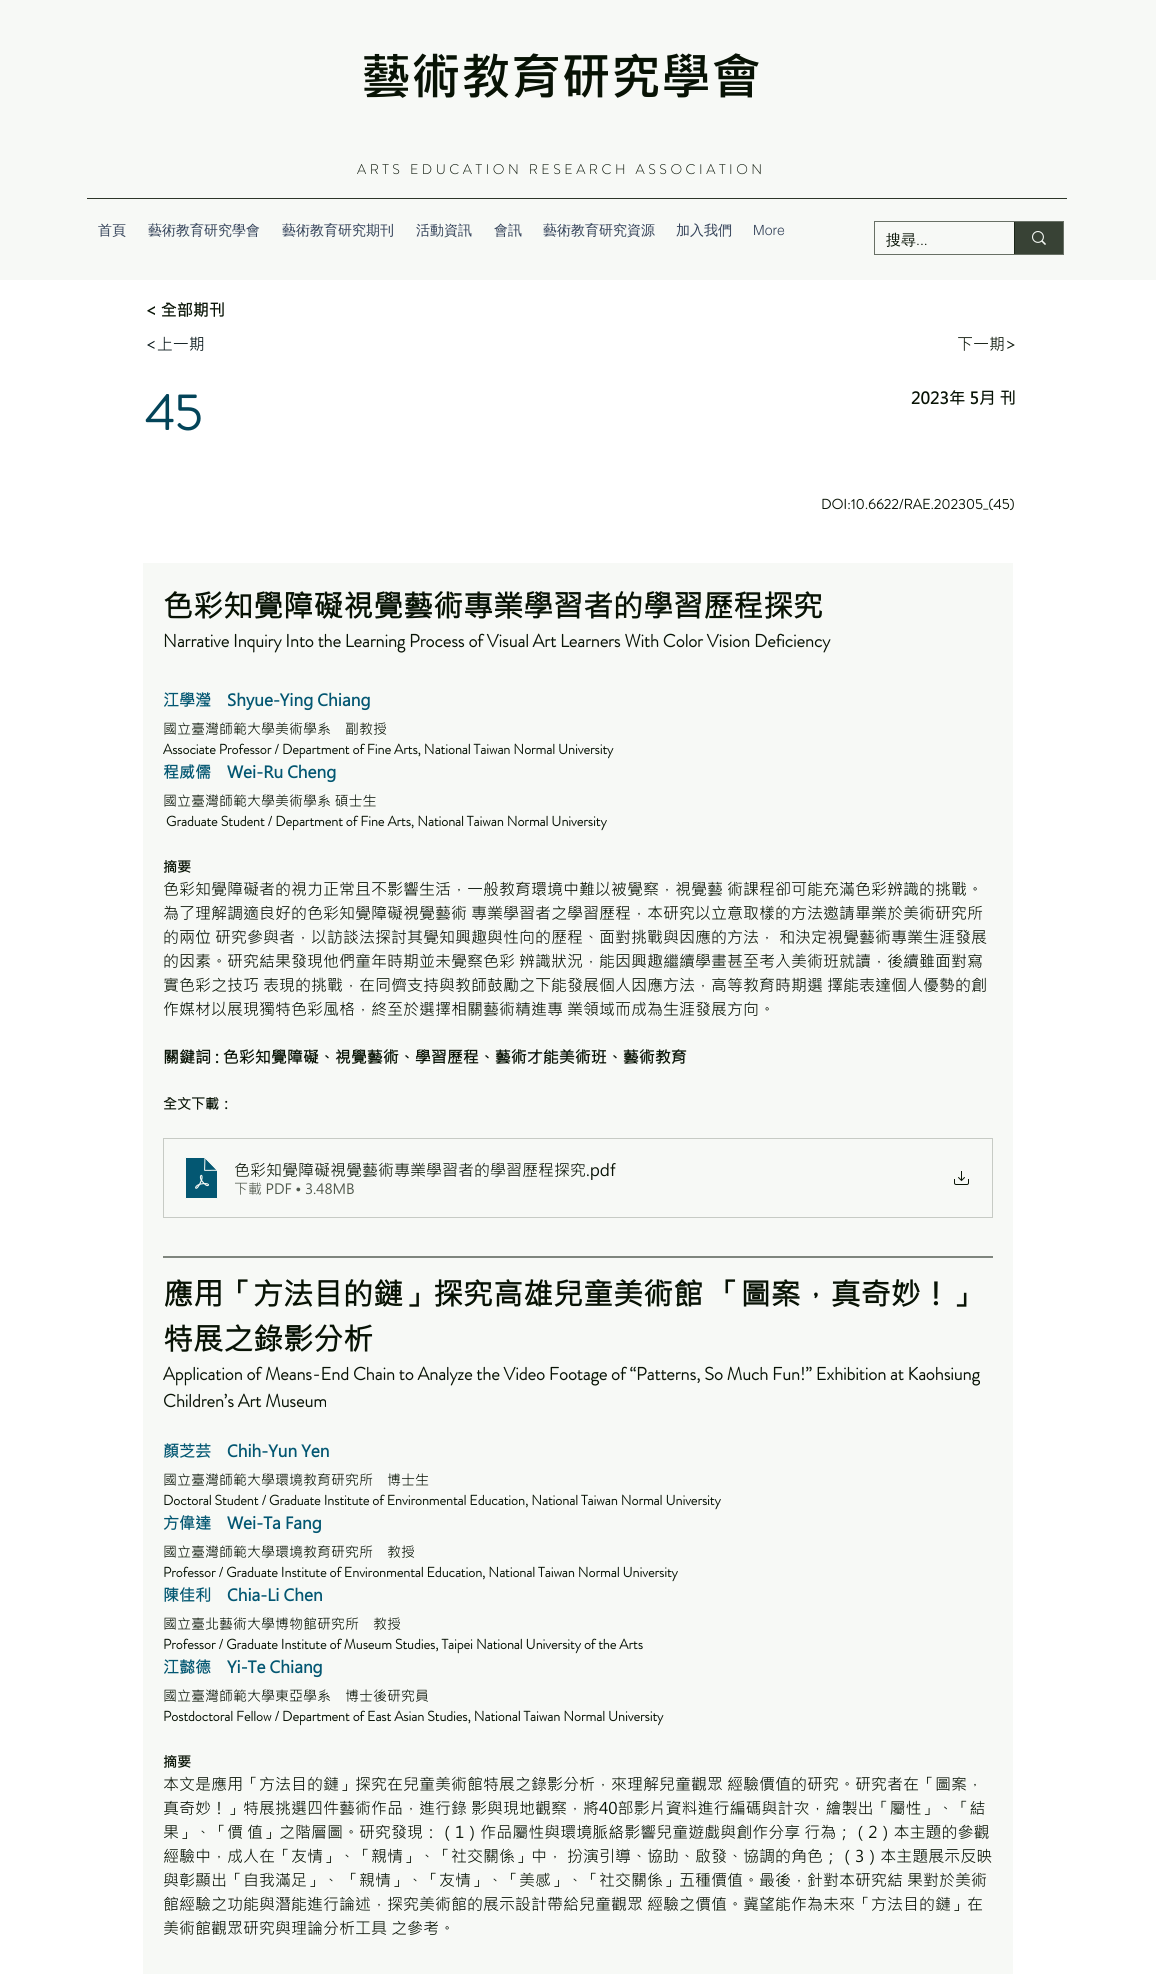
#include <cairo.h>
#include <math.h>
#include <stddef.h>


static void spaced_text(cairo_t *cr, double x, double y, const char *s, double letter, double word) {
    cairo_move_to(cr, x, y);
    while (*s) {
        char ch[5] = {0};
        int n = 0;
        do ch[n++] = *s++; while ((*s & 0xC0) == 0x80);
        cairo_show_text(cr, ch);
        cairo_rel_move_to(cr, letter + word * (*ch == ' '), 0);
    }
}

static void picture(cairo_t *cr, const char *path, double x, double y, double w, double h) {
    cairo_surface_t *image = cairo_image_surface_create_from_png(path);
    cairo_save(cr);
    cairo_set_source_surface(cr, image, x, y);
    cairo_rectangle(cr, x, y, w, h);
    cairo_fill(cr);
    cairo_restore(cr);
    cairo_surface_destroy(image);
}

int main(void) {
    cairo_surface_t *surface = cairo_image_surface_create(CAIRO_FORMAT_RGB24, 1156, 1974);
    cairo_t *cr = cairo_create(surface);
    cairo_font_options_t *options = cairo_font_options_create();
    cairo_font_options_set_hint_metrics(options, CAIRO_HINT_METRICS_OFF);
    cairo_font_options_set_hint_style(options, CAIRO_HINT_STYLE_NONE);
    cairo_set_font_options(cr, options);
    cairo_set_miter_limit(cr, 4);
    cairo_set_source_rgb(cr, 0.965, 0.976, 0.961);
    cairo_paint(cr);
    cairo_select_font_face(cr, "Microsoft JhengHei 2", CAIRO_FONT_SLANT_NORMAL, CAIRO_FONT_WEIGHT_BOLD);
    cairo_set_font_size(cr, 50);
    cairo_set_source_rgb(cr, 0.035, 0.078, 0.02);
    cairo_move_to(cr, 361, 95);
    cairo_show_text(cr, "藝術教育研究學會");
    cairo_select_font_face(cr, "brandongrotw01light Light", CAIRO_FONT_SLANT_NORMAL, CAIRO_FONT_WEIGHT_NORMAL);
    cairo_set_font_size(cr, 14);
    spaced_text(cr, 357, 174, "ARTS EDUCATION RESEARCH ASSOCIATION", 3.5, 0);
    cairo_set_source_rgb(cr, 0.176, 0.212, 0.161);
    cairo_rectangle(cr, 87, 198, 980, 1);
    cairo_fill(cr);
    cairo_select_font_face(cr, "WenQuanYi Zen Hei Medium", CAIRO_FONT_SLANT_NORMAL, CAIRO_FONT_WEIGHT_NORMAL);
    cairo_set_source_rgb(cr, 0.196, 0.255, 0.345);
    cairo_move_to(cr, 98, 235);
    cairo_show_text(cr, "首頁");
    cairo_move_to(cr, 148, 235);
    cairo_show_text(cr, "藝術教育研究學會");
    cairo_move_to(cr, 282, 235);
    cairo_show_text(cr, "藝術教育研究期刊");
    cairo_move_to(cr, 416, 235);
    cairo_show_text(cr, "活動資訊");
    cairo_move_to(cr, 494, 235);
    cairo_show_text(cr, "會訊");
    cairo_move_to(cr, 543, 235);
    cairo_show_text(cr, "藝術教育研究資源");
    cairo_move_to(cr, 676, 235);
    cairo_show_text(cr, "加入我們");
    cairo_select_font_face(cr, "helvetica Light", CAIRO_FONT_SLANT_NORMAL, CAIRO_FONT_WEIGHT_NORMAL);
    cairo_move_to(cr, 753, 235);
    cairo_show_text(cr, "More");
    cairo_rectangle(cr, 874.5, 221.5, 189, 33);
    cairo_set_source_rgb(cr, 0.408, 0.439, 0.396);
    cairo_set_line_width(cr, 1);
    cairo_stroke(cr);
    cairo_select_font_face(cr, "WenQuanYi Zen Hei Medium", CAIRO_FONT_SLANT_NORMAL, CAIRO_FONT_WEIGHT_NORMAL);
    cairo_set_font_size(cr, 15);
    cairo_set_source_rgb(cr, 0.035, 0.078, 0.02);
    cairo_move_to(cr, 886, 245);
    cairo_show_text(cr, "搜尋");
    cairo_select_font_face(cr, "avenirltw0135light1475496 Light", CAIRO_FONT_SLANT_NORMAL, CAIRO_FONT_WEIGHT_NORMAL);
    cairo_move_to(cr, 916, 245);
    cairo_show_text(cr, "...");
    cairo_set_source_rgb(cr, 0.22, 0.259, 0.208);
    cairo_rectangle(cr, 1015, 222, 48, 32);
    cairo_fill(cr);
    cairo_set_source_rgb(cr, 0.11, 0.149, 0.094);
    cairo_rectangle(cr, 1014, 222, 1, 32);
    cairo_fill(cr);
    picture(cr, "img1.png", 1032, 231, 14, 14);
    cairo_set_source_rgb(cr, 1, 1, 1);
    cairo_rectangle(cr, 0, 280, 1156, 1694);
    cairo_fill(cr);
    cairo_select_font_face(cr, "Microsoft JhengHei", CAIRO_FONT_SLANT_NORMAL, CAIRO_FONT_WEIGHT_BOLD);
    cairo_set_font_size(cr, 16);
    cairo_set_source_rgb(cr, 0.035, 0.078, 0.02);
    cairo_move_to(cr, 145, 316);
    cairo_show_text(cr, "< 全部期刊");
    cairo_select_font_face(cr, "Microsoft JhengHei", CAIRO_FONT_SLANT_NORMAL, CAIRO_FONT_WEIGHT_NORMAL);
    cairo_set_source_rgb(cr, 0.004, 0.063, 0.078);
    cairo_move_to(cr, 145, 350);
    cairo_show_text(cr, "<上一期");
    cairo_set_source_rgb(cr, 0.035, 0.078, 0.02);
    cairo_move_to(cr, 957, 350);
    cairo_show_text(cr, "下一期>");
    cairo_select_font_face(cr, "brandongrotw01light", CAIRO_FONT_SLANT_NORMAL, CAIRO_FONT_WEIGHT_BOLD);
    cairo_set_font_size(cr, 50);
    cairo_set_source_rgb(cr, 0.012, 0.267, 0.349);
    cairo_move_to(cr, 145, 430);
    cairo_show_text(cr, "45");
    cairo_select_font_face(cr, "Microsoft JhengHei", CAIRO_FONT_SLANT_NORMAL, CAIRO_FONT_WEIGHT_BOLD);
    cairo_set_font_size(cr, 16);
    cairo_set_source_rgb(cr, 0.035, 0.078, 0.02);
    spaced_text(cr, 911, 404, "2023年 5月 刊", 0.25, 0);
    cairo_select_font_face(cr, "brandongrotw01light", CAIRO_FONT_SLANT_NORMAL, CAIRO_FONT_WEIGHT_BOLD);
    cairo_set_font_size(cr, 14);
    spaced_text(cr, 821, 509, "DOI:10.6622/RAE.202305_(45)", 0.15, 0);
    cairo_set_source_rgb(cr, 0.965, 0.976, 0.961);
    cairo_rectangle(cr, 143, 563, 870, 1411);
    cairo_fill(cr);
    cairo_select_font_face(cr, "Microsoft JhengHei", CAIRO_FONT_SLANT_NORMAL, CAIRO_FONT_WEIGHT_BOLD);
    cairo_set_font_size(cr, 30);
    cairo_set_source_rgb(cr, 0.035, 0.078, 0.02);
    cairo_move_to(cr, 163, 617);
    cairo_show_text(cr, "色彩知覺障礙視覺藝術專業學習者的學習歷程探究");
    cairo_select_font_face(cr, "brandongrotw01light", CAIRO_FONT_SLANT_NORMAL, CAIRO_FONT_WEIGHT_BOLD);
    cairo_set_font_size(cr, 18);
    cairo_move_to(cr, 163, 647);
    cairo_show_text(cr, "Narrative Inquiry Into the Learning Process of Visual Art Learners With Color Vision Deficiency");
    cairo_select_font_face(cr, "Microsoft JhengHei", CAIRO_FONT_SLANT_NORMAL, CAIRO_FONT_WEIGHT_BOLD);
    cairo_set_font_size(cr, 16);
    cairo_set_source_rgb(cr, 0.012, 0.341, 0.447);
    cairo_move_to(cr, 163, 706);
    cairo_show_text(cr, "江學瀅　Shyue-Ying Chiang");
    cairo_select_font_face(cr, "Microsoft JhengHei", CAIRO_FONT_SLANT_NORMAL, CAIRO_FONT_WEIGHT_NORMAL);
    cairo_set_font_size(cr, 14);
    cairo_set_source_rgb(cr, 0.035, 0.078, 0.02);
    cairo_move_to(cr, 163, 734);
    cairo_show_text(cr, "國立臺灣師範大學美術學系　副教授");
    cairo_select_font_face(cr, "brandongrotw01light", CAIRO_FONT_SLANT_NORMAL, CAIRO_FONT_WEIGHT_BOLD);
    cairo_move_to(cr, 163, 754);
    cairo_show_text(cr, "Associate Professor / Department of Fine Arts, National Taiwan Normal University");
    cairo_select_font_face(cr, "Microsoft JhengHei", CAIRO_FONT_SLANT_NORMAL, CAIRO_FONT_WEIGHT_BOLD);
    cairo_set_font_size(cr, 16);
    cairo_set_source_rgb(cr, 0.012, 0.341, 0.447);
    cairo_move_to(cr, 163, 778);
    cairo_show_text(cr, "程威儒　Wei-Ru Cheng");
    cairo_select_font_face(cr, "Microsoft JhengHei", CAIRO_FONT_SLANT_NORMAL, CAIRO_FONT_WEIGHT_NORMAL);
    cairo_set_font_size(cr, 14);
    cairo_set_source_rgb(cr, 0.035, 0.078, 0.02);
    cairo_move_to(cr, 163, 806);
    cairo_show_text(cr, "國立臺灣師範大學美術學系 碩士生");
    cairo_select_font_face(cr, "brandongrotw01light", CAIRO_FONT_SLANT_NORMAL, CAIRO_FONT_WEIGHT_BOLD);
    cairo_move_to(cr, 166, 826);
    cairo_show_text(cr, "Graduate Student / Department of Fine Arts, National Taiwan Normal University");
    cairo_select_font_face(cr, "Microsoft JhengHei", CAIRO_FONT_SLANT_NORMAL, CAIRO_FONT_WEIGHT_BOLD);
    cairo_move_to(cr, 163, 872);
    cairo_show_text(cr, "摘要");
    cairo_select_font_face(cr, "Microsoft JhengHei", CAIRO_FONT_SLANT_NORMAL, CAIRO_FONT_WEIGHT_NORMAL);
    cairo_set_font_size(cr, 16);
    cairo_move_to(cr, 163, 895);
    cairo_show_text(cr, "色彩知覺障礙者的視力正常且不影響生活，一般教育環境中難以被覺察，視覺藝 術課程卻可能充滿色彩辨識的挑戰。");
    cairo_move_to(cr, 163, 919);
    cairo_show_text(cr, "為了理解調適良好的色彩知覺障礙視覺藝術 專業學習者之學習歷程，本研究以立意取樣的方法邀請畢業於美術研究所");
    cairo_move_to(cr, 163, 943);
    cairo_show_text(cr, "的兩位 研究參與者，以訪談法探討其覺知興趣與性向的歷程、面對挑戰與因應的方法， 和決定視覺藝術專業生涯發展");
    cairo_move_to(cr, 163, 967);
    cairo_show_text(cr, "的因素。研究結果發現他們童年時期並未覺察色彩 辨識狀況，能因興趣繼續學畫甚至考入美術班就讀，後續雖面對寫");
    cairo_move_to(cr, 163, 991);
    cairo_show_text(cr, "實色彩之技巧 表現的挑戰，在同儕支持與教師鼓勵之下能發展個人因應方法，高等教育時期選 擇能表達個人優勢的創");
    cairo_move_to(cr, 163, 1015);
    cairo_show_text(cr, "作媒材以展現獨特色彩風格，終至於選擇相關藝術精進專 業領域而成為生涯發展方向。");
    cairo_select_font_face(cr, "Microsoft JhengHei", CAIRO_FONT_SLANT_NORMAL, CAIRO_FONT_WEIGHT_BOLD);
    cairo_move_to(cr, 163, 1063);
    cairo_show_text(cr, "關鍵詞 : 色彩知覺障礙、視覺藝術、學習歷程、藝術才能美術班、藝術教育");
    cairo_set_font_size(cr, 14);
    cairo_move_to(cr, 163, 1109);
    cairo_show_text(cr, "全文下載：");
    cairo_rectangle(cr, 163.5, 1138.5, 829, 79);
    cairo_set_source_rgb(cr, 0.78, 0.796, 0.773);
    cairo_stroke(cr);
    picture(cr, "img2.png", 185, 1157, 33, 42);
    cairo_select_font_face(cr, "Microsoft JhengHei", CAIRO_FONT_SLANT_NORMAL, CAIRO_FONT_WEIGHT_NORMAL);
    cairo_set_font_size(cr, 16);
    cairo_set_source_rgb(cr, 0.035, 0.078, 0.02);
    cairo_move_to(cr, 234, 1176);
    cairo_show_text(cr, "色彩知覺障礙視覺藝術專業學習者的學習歷程探究");
    cairo_move_to(cr, 586, 1176);
    cairo_show_text(cr, ".pdf");
    cairo_set_font_size(cr, 14);
    cairo_set_source_rgb(cr, 0.314, 0.349, 0.302);
    cairo_move_to(cr, 234, 1194);
    cairo_show_text(cr, "下載 PDF • 3.48MB");
    picture(cr, "img3.png", 954, 1171, 15, 14);
    cairo_new_path(cr);
    cairo_move_to(cr, 163, 1257);
    cairo_line_to(cr, 993, 1257);
    cairo_set_source_rgb(cr, 0.035, 0.078, 0.02);
    cairo_stroke(cr);
    cairo_select_font_face(cr, "Microsoft JhengHei", CAIRO_FONT_SLANT_NORMAL, CAIRO_FONT_WEIGHT_BOLD);
    cairo_set_font_size(cr, 30);
    cairo_move_to(cr, 163, 1305);
    cairo_show_text(cr, "應用「方法目的鏈」探究高雄兒童美術館 「圖案，真奇妙！」");
    cairo_move_to(cr, 163, 1350);
    cairo_show_text(cr, "特展之錄影分析");
    cairo_select_font_face(cr, "brandongrotw01light", CAIRO_FONT_SLANT_NORMAL, CAIRO_FONT_WEIGHT_BOLD);
    cairo_set_font_size(cr, 18);
    cairo_move_to(cr, 163, 1380);
    cairo_show_text(cr, "Application of Means-End Chain to Analyze the Video Footage of “Patterns, So Much Fun!” Exhibition at Kaohsiung");
    cairo_move_to(cr, 163, 1407);
    cairo_show_text(cr, "Children’s Art Museum");
    cairo_select_font_face(cr, "Microsoft JhengHei", CAIRO_FONT_SLANT_NORMAL, CAIRO_FONT_WEIGHT_BOLD);
    cairo_set_font_size(cr, 16);
    cairo_set_source_rgb(cr, 0.012, 0.341, 0.447);
    cairo_move_to(cr, 163, 1457);
    cairo_show_text(cr, "顏芝芸　Chih-Yun Yen");
    cairo_select_font_face(cr, "Microsoft JhengHei", CAIRO_FONT_SLANT_NORMAL, CAIRO_FONT_WEIGHT_NORMAL);
    cairo_set_font_size(cr, 14);
    cairo_set_source_rgb(cr, 0.035, 0.078, 0.02);
    cairo_move_to(cr, 163, 1485);
    cairo_show_text(cr, "國立臺灣師範大學環境教育研究所　博士生");
    cairo_select_font_face(cr, "brandongrotw01light", CAIRO_FONT_SLANT_NORMAL, CAIRO_FONT_WEIGHT_BOLD);
    cairo_move_to(cr, 163, 1505);
    cairo_show_text(cr, "Doctoral Student / Graduate Institute of Environmental Education, National Taiwan Normal University");
    cairo_select_font_face(cr, "Microsoft JhengHei", CAIRO_FONT_SLANT_NORMAL, CAIRO_FONT_WEIGHT_BOLD);
    cairo_set_font_size(cr, 16);
    cairo_set_source_rgb(cr, 0.012, 0.341, 0.447);
    cairo_move_to(cr, 163, 1529);
    cairo_show_text(cr, "方偉達　Wei-Ta Fang");
    cairo_select_font_face(cr, "Microsoft JhengHei", CAIRO_FONT_SLANT_NORMAL, CAIRO_FONT_WEIGHT_NORMAL);
    cairo_set_font_size(cr, 14);
    cairo_set_source_rgb(cr, 0.035, 0.078, 0.02);
    cairo_move_to(cr, 163, 1557);
    cairo_show_text(cr, "國立臺灣師範大學環境教育研究所　教授");
    cairo_select_font_face(cr, "brandongrotw01light", CAIRO_FONT_SLANT_NORMAL, CAIRO_FONT_WEIGHT_BOLD);
    cairo_move_to(cr, 163, 1577);
    cairo_show_text(cr, "Professor / Graduate Institute of Environmental Education, National Taiwan Normal University");
    cairo_select_font_face(cr, "Microsoft JhengHei", CAIRO_FONT_SLANT_NORMAL, CAIRO_FONT_WEIGHT_BOLD);
    cairo_set_font_size(cr, 16);
    cairo_set_source_rgb(cr, 0.012, 0.341, 0.447);
    cairo_move_to(cr, 163, 1601);
    cairo_show_text(cr, "陳佳利");
    cairo_move_to(cr, 227, 1601);
    cairo_show_text(cr, "Chia-Li Chen");
    cairo_select_font_face(cr, "Microsoft JhengHei", CAIRO_FONT_SLANT_NORMAL, CAIRO_FONT_WEIGHT_NORMAL);
    cairo_set_font_size(cr, 14);
    cairo_set_source_rgb(cr, 0.035, 0.078, 0.02);
    cairo_move_to(cr, 163, 1629);
    cairo_show_text(cr, "國立臺北藝術大學博物館研究所　教授");
    cairo_select_font_face(cr, "brandongrotw01light", CAIRO_FONT_SLANT_NORMAL, CAIRO_FONT_WEIGHT_BOLD);
    cairo_move_to(cr, 163, 1649);
    cairo_show_text(cr, "Professor / Graduate Institute of Museum Studies, Taipei National University of the Arts");
    cairo_select_font_face(cr, "Microsoft JhengHei", CAIRO_FONT_SLANT_NORMAL, CAIRO_FONT_WEIGHT_BOLD);
    cairo_set_font_size(cr, 16);
    cairo_set_source_rgb(cr, 0.012, 0.341, 0.447);
    cairo_move_to(cr, 163, 1673);
    cairo_show_text(cr, "江懿德");
    cairo_move_to(cr, 227, 1673);
    cairo_show_text(cr, "Yi-Te Chiang");
    cairo_select_font_face(cr, "Microsoft JhengHei", CAIRO_FONT_SLANT_NORMAL, CAIRO_FONT_WEIGHT_NORMAL);
    cairo_set_font_size(cr, 14);
    cairo_set_source_rgb(cr, 0.035, 0.078, 0.02);
    cairo_move_to(cr, 163, 1701);
    cairo_show_text(cr, "國立臺灣師範大學東亞學系　博士後研究員");
    cairo_select_font_face(cr, "brandongrotw01light", CAIRO_FONT_SLANT_NORMAL, CAIRO_FONT_WEIGHT_BOLD);
    cairo_move_to(cr, 163, 1721);
    cairo_show_text(cr, "Postdoctoral Fellow / Department of East Asian Studies, National Taiwan Normal University");
    cairo_select_font_face(cr, "Microsoft JhengHei", CAIRO_FONT_SLANT_NORMAL, CAIRO_FONT_WEIGHT_BOLD);
    cairo_move_to(cr, 163, 1767);
    cairo_show_text(cr, "摘要");
    cairo_select_font_face(cr, "Microsoft JhengHei", CAIRO_FONT_SLANT_NORMAL, CAIRO_FONT_WEIGHT_NORMAL);
    cairo_set_font_size(cr, 16);
    cairo_move_to(cr, 163, 1790);
    cairo_show_text(cr, "本文是應用「方法目的鏈」探究在兒童美術館特展之錄影分析，來理解兒童觀眾 經驗價值的研究。研究者在「圖案，");
    cairo_move_to(cr, 163, 1814);
    cairo_show_text(cr, "真奇妙！」特展挑選四件藝術作品，進行錄 影與現地觀察，將40部影片資料進行編碼與計次，繪製出「屬性」、「結");
    cairo_move_to(cr, 163, 1838);
    cairo_show_text(cr, "果」、「價 值」之階層圖。研究發現：（1）作品屬性與環境脈絡影響兒童遊戲與創作分享 行為；（2）本主題的參觀");
    cairo_move_to(cr, 163, 1862);
    cairo_show_text(cr, "經驗中，成人在「友情」、「親情」、「社交關係」中， 扮演引導、協助、啟發、協調的角色；（3）本主題展示反映");
    cairo_move_to(cr, 163, 1886);
    cairo_show_text(cr, "與彰顯出「自我滿足」、 「親情」、「友情」、「美感」、「社交關係」五種價值。最後，針對本研究結 果對於美術");
    cairo_move_to(cr, 163, 1910);
    cairo_show_text(cr, "館經驗之功能與潛能進行論述，探究美術館的展示設計帶給兒童觀眾 經驗之價值。冀望能作為未來「方法目的鏈」在");
    cairo_move_to(cr, 163, 1934);
    cairo_show_text(cr, "美術館觀眾研究與理論分析工具 之參考。");
    cairo_surface_write_to_png(surface, "page.png");
    cairo_font_options_destroy(options);
    cairo_destroy(cr);
    cairo_surface_destroy(surface);
    return 0;
}
